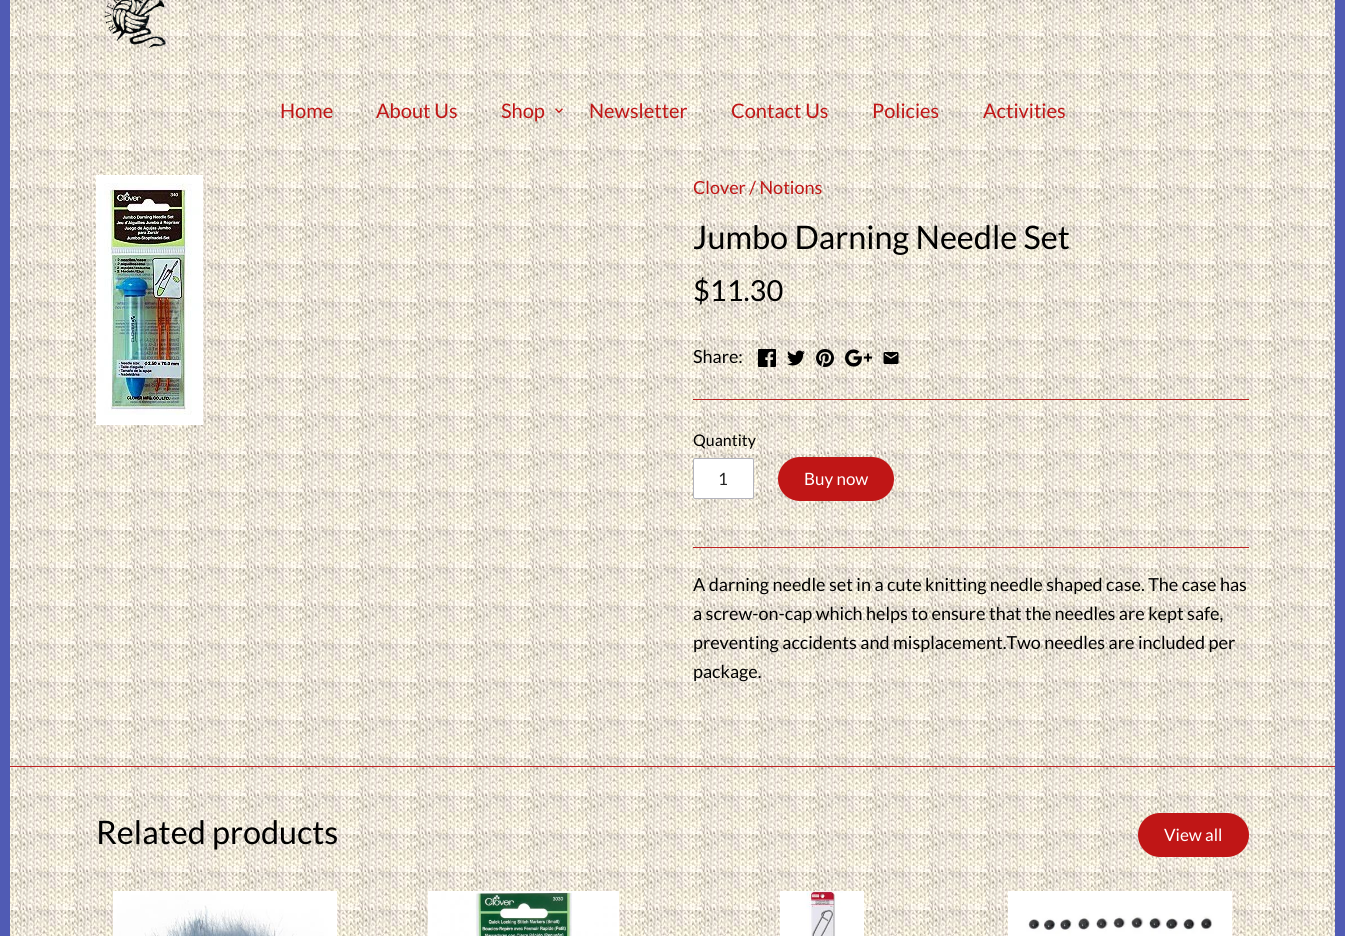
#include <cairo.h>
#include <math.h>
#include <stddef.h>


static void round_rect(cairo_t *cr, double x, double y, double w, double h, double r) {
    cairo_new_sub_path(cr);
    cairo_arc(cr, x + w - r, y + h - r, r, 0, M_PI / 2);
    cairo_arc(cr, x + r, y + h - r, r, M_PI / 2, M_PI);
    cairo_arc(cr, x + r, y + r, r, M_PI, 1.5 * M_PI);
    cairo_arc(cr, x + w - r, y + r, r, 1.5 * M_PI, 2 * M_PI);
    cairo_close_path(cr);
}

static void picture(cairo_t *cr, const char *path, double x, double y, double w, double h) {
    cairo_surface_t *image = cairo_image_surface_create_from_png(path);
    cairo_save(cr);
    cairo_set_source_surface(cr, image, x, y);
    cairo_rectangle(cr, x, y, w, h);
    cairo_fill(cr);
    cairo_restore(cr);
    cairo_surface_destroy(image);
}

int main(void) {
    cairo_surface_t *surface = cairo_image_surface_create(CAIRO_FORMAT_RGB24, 1345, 936);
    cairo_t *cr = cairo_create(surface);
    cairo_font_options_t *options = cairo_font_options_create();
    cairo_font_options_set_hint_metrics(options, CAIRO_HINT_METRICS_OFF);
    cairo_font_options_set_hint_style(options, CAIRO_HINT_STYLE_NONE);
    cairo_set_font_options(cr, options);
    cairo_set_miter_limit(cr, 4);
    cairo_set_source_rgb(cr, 1, 1, 1);
    cairo_paint(cr);
    cairo_rectangle(cr, 5, -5, 1335, 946);
    cairo_set_source_rgb(cr, 0.314, 0.357, 0.706);
    cairo_set_line_width(cr, 10);
    cairo_stroke(cr);
    picture(cr, "img1.png", 10, 0, 1325, 936);
    picture(cr, "img2.png", 104, 0, 62, 49);
    cairo_select_font_face(cr, "Lato", CAIRO_FONT_SLANT_NORMAL, CAIRO_FONT_WEIGHT_NORMAL);
    cairo_set_font_size(cr, 20);
    cairo_set_source_rgb(cr, 0.753, 0.086, 0.086);
    cairo_move_to(cr, 280, 118);
    cairo_show_text(cr, "Home");
    cairo_move_to(cr, 376, 118);
    cairo_show_text(cr, "About Us");
    cairo_move_to(cr, 501, 118);
    cairo_show_text(cr, "Shop");
    picture(cr, "img3.png", 555, 108, 8, 5);
    cairo_move_to(cr, 589, 118);
    cairo_show_text(cr, "Newsletter");
    cairo_move_to(cr, 731, 118);
    cairo_show_text(cr, "Contact Us");
    cairo_move_to(cr, 872, 118);
    cairo_show_text(cr, "Policies");
    cairo_move_to(cr, 983, 118);
    cairo_show_text(cr, "Activities");
    picture(cr, "img4.png", 96, 175, 107, 250);
    cairo_set_source_rgb(cr, 0.745, 0.129, 0.129);
    cairo_rectangle(cr, 693, 399, 556, 1);
    cairo_fill(cr);
    cairo_set_font_size(cr, 18);
    cairo_set_source_rgb(cr, 0.753, 0.086, 0.086);
    cairo_move_to(cr, 693, 194);
    cairo_show_text(cr, "Clover / Notions");
    cairo_set_font_size(cr, 32.4);
    cairo_set_source_rgb(cr, 0, 0, 0);
    cairo_move_to(cr, 693, 249);
    cairo_show_text(cr, "Jumbo Darning Needle Set");
    cairo_set_font_size(cr, 29);
    cairo_move_to(cr, 693, 301);
    cairo_show_text(cr, "$11.30");
    cairo_set_font_size(cr, 18);
    cairo_move_to(cr, 693, 363);
    cairo_show_text(cr, "Share:");
    picture(cr, "img5.png", 758, 349, 18, 18);
    picture(cr, "img6.png", 787, 350, 18, 16);
    picture(cr, "img7.png", 816, 349, 18, 18);
    picture(cr, "img8.png", 845, 349, 27, 18);
    picture(cr, "img9.png", 883, 352, 16, 12);
    cairo_set_source_rgb(cr, 0.745, 0.129, 0.129);
    cairo_rectangle(cr, 693, 547, 556, 1);
    cairo_fill(cr);
    cairo_set_font_size(cr, 16);
    cairo_set_source_rgb(cr, 0, 0, 0);
    cairo_move_to(cr, 693, 446);
    cairo_show_text(cr, "Quantity");
    cairo_set_source_rgb(cr, 1, 1, 1);
    round_rect(cr, 693.5, 458.5, 60, 40, 1.5);
    cairo_fill_preserve(cr);
    cairo_set_source_rgb(cr, 0.698, 0.702, 0.737);
    cairo_set_line_width(cr, 1);
    cairo_stroke(cr);
    cairo_set_font_size(cr, 17);
    cairo_set_source_rgb(cr, 0.133, 0.133, 0.133);
    cairo_move_to(cr, 718, 485);
    cairo_show_text(cr, "1");
    cairo_set_source_rgb(cr, 0.753, 0.086, 0.086);
    round_rect(cr, 779, 458, 114, 42, 21);
    cairo_fill_preserve(cr);
    cairo_set_line_width(cr, 2);
    cairo_stroke(cr);
    cairo_set_source_rgb(cr, 1, 1, 1);
    cairo_move_to(cr, 804, 485);
    cairo_show_text(cr, "Buy now");
    cairo_set_font_size(cr, 18);
    cairo_set_source_rgb(cr, 0, 0, 0);
    cairo_move_to(cr, 693, 591);
    cairo_show_text(cr, "A darning needle set in a cute knitting needle shaped case. The case has");
    cairo_move_to(cr, 693, 620);
    cairo_show_text(cr, "a screw-on-cap which helps to ensure that the needles are kept safe,");
    cairo_move_to(cr, 693, 649);
    cairo_show_text(cr, "preventing accidents and misplacement.Two needles are included per");
    cairo_move_to(cr, 693, 678);
    cairo_show_text(cr, "package.");
    cairo_set_source_rgb(cr, 0.745, 0.129, 0.129);
    cairo_rectangle(cr, 10, 766, 1325, 1);
    cairo_fill(cr);
    cairo_set_font_size(cr, 32.4);
    cairo_set_source_rgb(cr, 0, 0, 0);
    cairo_move_to(cr, 96, 844);
    cairo_show_text(cr, "Related products");
    cairo_set_source_rgb(cr, 0.753, 0.086, 0.086);
    round_rect(cr, 1139, 814, 109, 42, 21);
    cairo_fill_preserve(cr);
    cairo_stroke(cr);
    cairo_set_font_size(cr, 17);
    cairo_set_source_rgb(cr, 1, 1, 1);
    cairo_move_to(cr, 1164, 841);
    cairo_show_text(cr, "View all");
    picture(cr, "img10.png", 113, 891, 224, 45);
    picture(cr, "img11.png", 428, 891, 191, 45);
    picture(cr, "img12.png", 780, 891, 84, 45);
    picture(cr, "img13.png", 1008, 891, 224, 45);
    cairo_surface_write_to_png(surface, "page.png");
    cairo_font_options_destroy(options);
    cairo_destroy(cr);
    cairo_surface_destroy(surface);
    return 0;
}
